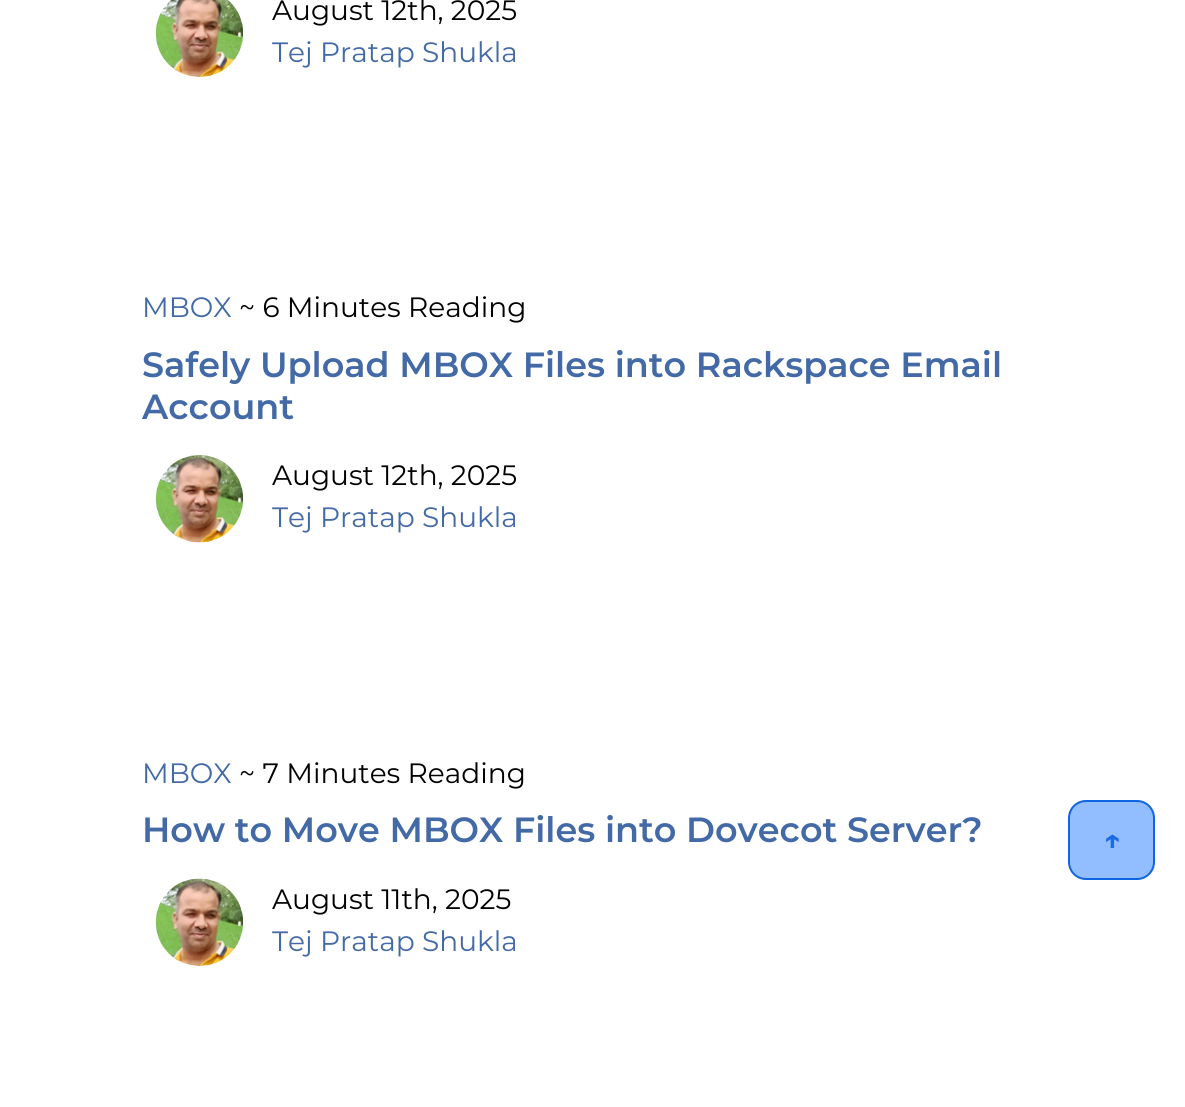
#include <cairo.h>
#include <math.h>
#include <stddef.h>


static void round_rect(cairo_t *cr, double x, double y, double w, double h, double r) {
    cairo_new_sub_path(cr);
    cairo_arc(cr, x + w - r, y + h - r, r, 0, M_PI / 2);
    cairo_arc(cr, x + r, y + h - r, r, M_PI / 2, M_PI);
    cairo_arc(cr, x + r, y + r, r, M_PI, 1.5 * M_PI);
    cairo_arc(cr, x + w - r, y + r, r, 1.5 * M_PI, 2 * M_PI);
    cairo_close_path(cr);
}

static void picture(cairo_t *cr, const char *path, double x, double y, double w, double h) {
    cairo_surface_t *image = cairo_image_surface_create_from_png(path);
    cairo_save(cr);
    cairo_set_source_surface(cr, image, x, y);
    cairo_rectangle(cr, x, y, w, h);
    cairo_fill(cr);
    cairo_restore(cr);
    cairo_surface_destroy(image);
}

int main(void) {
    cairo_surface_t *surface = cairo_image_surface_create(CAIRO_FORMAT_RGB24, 1185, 1107);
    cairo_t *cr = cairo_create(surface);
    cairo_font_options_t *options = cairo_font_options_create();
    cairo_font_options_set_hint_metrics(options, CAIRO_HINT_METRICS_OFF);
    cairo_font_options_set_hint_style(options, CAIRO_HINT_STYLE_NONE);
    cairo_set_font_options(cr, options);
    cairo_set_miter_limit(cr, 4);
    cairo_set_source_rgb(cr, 1, 1, 1);
    cairo_paint(cr);
    picture(cr, "img1.png", 155, 0, 89, 77);
    cairo_select_font_face(cr, "Montserrat", CAIRO_FONT_SLANT_NORMAL, CAIRO_FONT_WEIGHT_NORMAL);
    cairo_set_font_size(cr, 28);
    cairo_set_source_rgb(cr, 0, 0, 0);
    cairo_move_to(cr, 272, 20);
    cairo_show_text(cr, "August 12th, 2025");
    cairo_set_source_rgb(cr, 0.263, 0.416, 0.651);
    cairo_move_to(cr, 272, 62);
    cairo_show_text(cr, "Tej Pratap Shukla");
    cairo_move_to(cr, 142, 317);
    cairo_show_text(cr, "MBOX");
    cairo_set_source_rgb(cr, 0, 0, 0);
    cairo_move_to(cr, 239, 317);
    cairo_show_text(cr, "~ 6 Minutes Reading");
    cairo_select_font_face(cr, "Montserrat SemiBold", CAIRO_FONT_SLANT_NORMAL, CAIRO_FONT_WEIGHT_NORMAL);
    cairo_set_font_size(cr, 35);
    cairo_set_source_rgb(cr, 0.263, 0.416, 0.651);
    cairo_move_to(cr, 142, 377);
    cairo_show_text(cr, "Safely Upload MBOX Files into Rackspace Email");
    cairo_move_to(cr, 142, 419);
    cairo_show_text(cr, "Account");
    picture(cr, "img2.png", 155, 455, 89, 88);
    cairo_select_font_face(cr, "Montserrat", CAIRO_FONT_SLANT_NORMAL, CAIRO_FONT_WEIGHT_NORMAL);
    cairo_set_font_size(cr, 28);
    cairo_set_source_rgb(cr, 0, 0, 0);
    cairo_move_to(cr, 272, 485);
    cairo_show_text(cr, "August 12th, 2025");
    cairo_set_source_rgb(cr, 0.263, 0.416, 0.651);
    cairo_move_to(cr, 272, 527);
    cairo_show_text(cr, "Tej Pratap Shukla");
    cairo_move_to(cr, 142, 783);
    cairo_show_text(cr, "MBOX");
    cairo_set_source_rgb(cr, 0, 0, 0);
    cairo_move_to(cr, 239, 783);
    cairo_show_text(cr, "~ 7 Minutes Reading");
    cairo_select_font_face(cr, "Montserrat SemiBold", CAIRO_FONT_SLANT_NORMAL, CAIRO_FONT_WEIGHT_NORMAL);
    cairo_set_font_size(cr, 35);
    cairo_set_source_rgb(cr, 0.263, 0.416, 0.651);
    cairo_move_to(cr, 142, 842);
    cairo_show_text(cr, "How to Move MBOX Files into Dovecot Server?");
    picture(cr, "img3.png", 155, 878, 89, 88);
    cairo_select_font_face(cr, "Montserrat", CAIRO_FONT_SLANT_NORMAL, CAIRO_FONT_WEIGHT_NORMAL);
    cairo_set_font_size(cr, 28);
    cairo_set_source_rgb(cr, 0, 0, 0);
    cairo_move_to(cr, 272, 909);
    cairo_show_text(cr, "August 11th, 2025");
    cairo_set_source_rgb(cr, 0.263, 0.416, 0.651);
    cairo_move_to(cr, 272, 951);
    cairo_show_text(cr, "Tej Pratap Shukla");
    cairo_set_source_rgb(cr, 0.573, 0.745, 1);
    round_rect(cr, 1069, 801, 85, 78, 17);
    cairo_fill_preserve(cr);
    cairo_set_source_rgb(cr, 0.059, 0.396, 0.894);
    cairo_stroke(cr);
    cairo_select_font_face(cr, "Montserrat", CAIRO_FONT_SLANT_NORMAL, CAIRO_FONT_WEIGHT_BOLD);
    cairo_set_source_rgb(cr, 0.094, 0.416, 0.898);
    cairo_move_to(cr, 1104, 849);
    cairo_show_text(cr, "↑");
    cairo_surface_write_to_png(surface, "page.png");
    cairo_font_options_destroy(options);
    cairo_destroy(cr);
    cairo_surface_destroy(surface);
    return 0;
}
